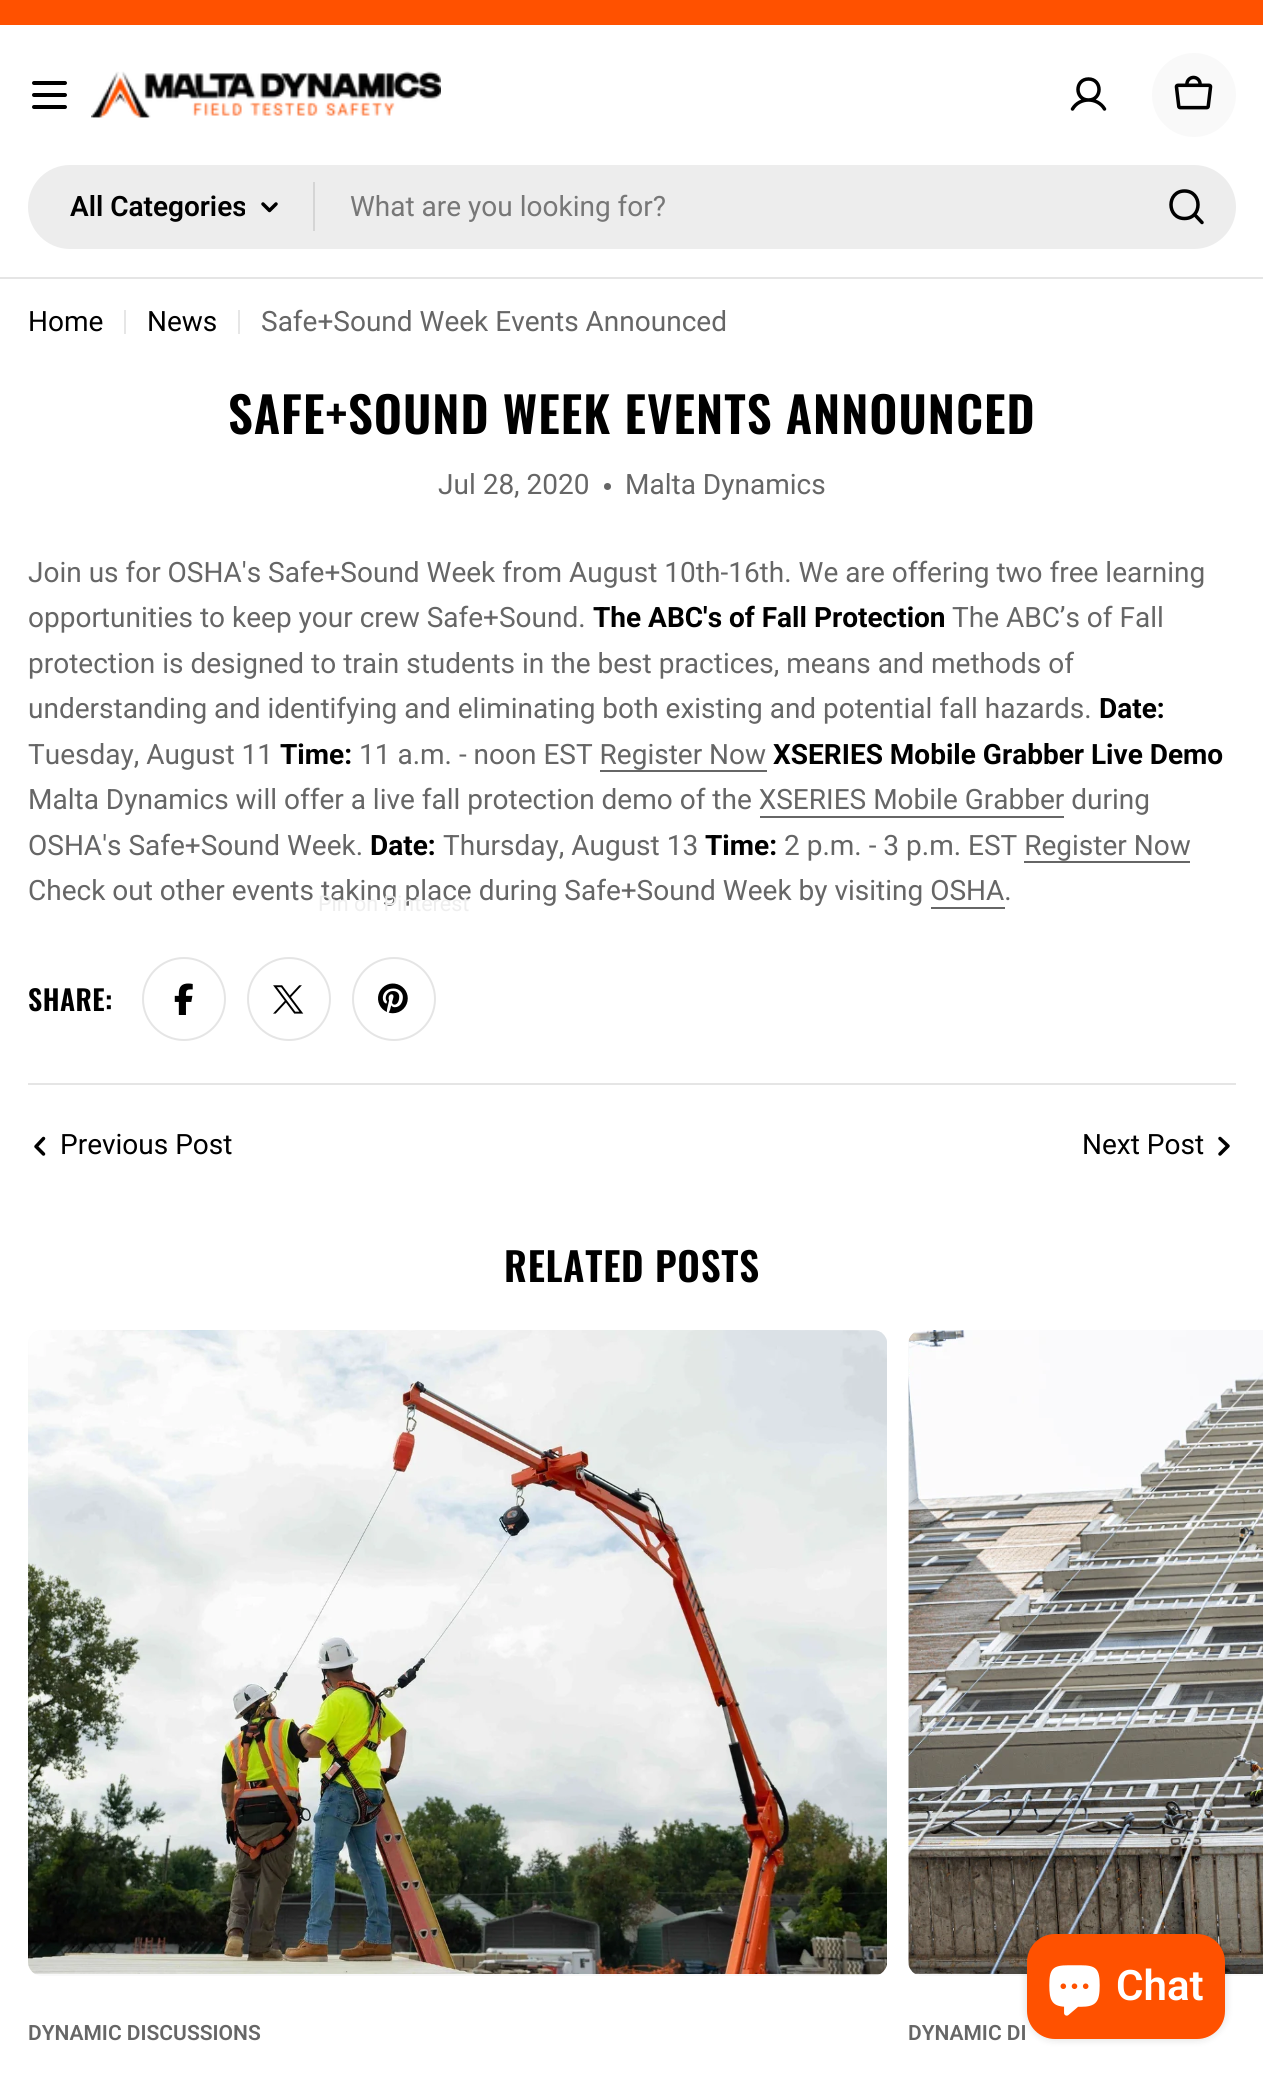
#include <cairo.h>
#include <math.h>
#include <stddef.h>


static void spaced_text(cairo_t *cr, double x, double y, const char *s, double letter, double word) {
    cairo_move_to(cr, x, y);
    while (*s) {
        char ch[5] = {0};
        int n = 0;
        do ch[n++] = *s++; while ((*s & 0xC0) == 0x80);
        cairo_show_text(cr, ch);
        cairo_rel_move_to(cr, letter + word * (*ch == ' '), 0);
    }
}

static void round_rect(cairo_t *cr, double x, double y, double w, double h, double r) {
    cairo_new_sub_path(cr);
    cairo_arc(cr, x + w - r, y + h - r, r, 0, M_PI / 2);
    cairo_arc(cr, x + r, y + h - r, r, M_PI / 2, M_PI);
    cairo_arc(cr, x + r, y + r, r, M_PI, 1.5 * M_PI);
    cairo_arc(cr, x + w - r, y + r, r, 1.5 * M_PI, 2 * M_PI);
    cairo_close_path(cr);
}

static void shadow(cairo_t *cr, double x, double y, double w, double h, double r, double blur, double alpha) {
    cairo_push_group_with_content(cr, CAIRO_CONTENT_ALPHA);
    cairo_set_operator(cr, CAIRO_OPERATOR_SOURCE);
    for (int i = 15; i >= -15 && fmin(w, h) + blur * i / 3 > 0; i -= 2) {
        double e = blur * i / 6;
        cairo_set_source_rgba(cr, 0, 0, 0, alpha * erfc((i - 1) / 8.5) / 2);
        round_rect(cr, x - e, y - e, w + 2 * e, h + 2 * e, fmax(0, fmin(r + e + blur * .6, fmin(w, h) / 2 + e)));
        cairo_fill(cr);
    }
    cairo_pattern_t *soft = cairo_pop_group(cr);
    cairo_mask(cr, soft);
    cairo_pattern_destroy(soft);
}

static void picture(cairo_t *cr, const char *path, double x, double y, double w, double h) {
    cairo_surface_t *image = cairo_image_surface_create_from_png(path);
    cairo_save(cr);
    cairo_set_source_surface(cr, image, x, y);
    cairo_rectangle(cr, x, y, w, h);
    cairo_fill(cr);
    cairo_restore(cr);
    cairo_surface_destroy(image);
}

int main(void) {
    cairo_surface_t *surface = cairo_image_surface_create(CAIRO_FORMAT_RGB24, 1263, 2074);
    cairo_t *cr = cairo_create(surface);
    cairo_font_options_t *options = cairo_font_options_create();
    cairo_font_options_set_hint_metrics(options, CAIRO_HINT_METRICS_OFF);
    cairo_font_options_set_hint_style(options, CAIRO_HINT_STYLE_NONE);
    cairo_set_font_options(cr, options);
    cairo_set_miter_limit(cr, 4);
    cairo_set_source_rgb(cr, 1, 1, 1);
    cairo_paint(cr);
    cairo_set_source_rgb(cr, 1, 0.318, 0);
    cairo_rectangle(cr, 0, 0, 1263, 25);
    cairo_fill(cr);
    cairo_set_source_rgb(cr, 0, 0, 0);
    round_rect(cr, 32, 93, 35, 4, 2);
    cairo_fill(cr);
    round_rect(cr, 32, 81, 35, 4, 2);
    cairo_fill(cr);
    round_rect(cr, 32, 105, 35, 4, 2);
    cairo_fill(cr);
    picture(cr, "img1.png", 91, 71, 350, 47);
    cairo_new_path(cr);
    cairo_move_to(cr, 1088.5, 100);
    cairo_curve_to(cr, 1102.5, 100, 1102.5, 79, 1088.5, 79);
    cairo_curve_to(cr, 1074.5, 79, 1074.5, 100, 1088.5, 100);
    cairo_close_path(cr);
    cairo_move_to(cr, 1072.5, 109);
    cairo_curve_to(cr, 1079.5, 97, 1097.5, 97, 1104.5, 109);
    cairo_set_line_width(cr, 3.5);
    cairo_set_line_cap(cr, CAIRO_LINE_CAP_ROUND);
    cairo_set_line_join(cr, CAIRO_LINE_JOIN_ROUND);
    cairo_stroke(cr);
    cairo_set_source_rgb(cr, 0.976, 0.976, 0.976);
    cairo_arc(cr, 1194, 95, 42, 0, 2 * M_PI);
    cairo_fill(cr);
    picture(cr, "img2.png", 1174, 75, 39, 35);
    cairo_set_source_rgb(cr, 0.929, 0.929, 0.929);
    round_rect(cr, 28, 165, 1208, 84, 42);
    cairo_fill(cr);
    cairo_save(cr);
    cairo_rectangle(cr, 70, 165, 175, 84);
    cairo_clip(cr);
    cairo_select_font_face(cr, "Roboto SemiBold", CAIRO_FONT_SLANT_NORMAL, CAIRO_FONT_WEIGHT_NORMAL);
    cairo_set_font_size(cr, 28);
    cairo_set_source_rgb(cr, 0, 0, 0);
    cairo_move_to(cr, 70, 216);
    cairo_show_text(cr, "All Categories");
    cairo_restore(cr);
    cairo_new_path(cr);
    cairo_move_to(cr, 276, 204);
    cairo_line_to(cr, 269.5, 210.5);
    cairo_line_to(cr, 263, 204);
    cairo_set_source_rgb(cr, 0, 0, 0);
    cairo_stroke(cr);
    cairo_set_source_rgb(cr, 0.835, 0.835, 0.835);
    cairo_rectangle(cr, 313, 182, 2, 49);
    cairo_fill(cr);
    cairo_select_font_face(cr, "Roboto", CAIRO_FONT_SLANT_NORMAL, CAIRO_FONT_WEIGHT_NORMAL);
    cairo_set_font_size(cr, 28);
    cairo_set_source_rgb(cr, 0.467, 0.467, 0.467);
    cairo_move_to(cr, 350, 216);
    cairo_show_text(cr, "What are you looking for?");
    cairo_new_path(cr);
    cairo_move_to(cr, 1184.5, 218.5);
    cairo_curve_to(cr, 1202.5, 218.5, 1202.5, 191, 1184.5, 191);
    cairo_curve_to(cr, 1166.5, 191, 1166.5, 218.5, 1184.5, 218.5);
    cairo_close_path(cr);
    cairo_move_to(cr, 1194.5, 214.5);
    cairo_line_to(cr, 1202, 222.5);
    cairo_set_source_rgb(cr, 0, 0, 0);
    cairo_stroke(cr);
    cairo_set_source_rgb(cr, 0.898, 0.898, 0.898);
    cairo_rectangle(cr, 0, 277, 1263, 2);
    cairo_fill(cr);
    cairo_set_source_rgb(cr, 0, 0, 0);
    cairo_move_to(cr, 28, 331);
    cairo_show_text(cr, "Home");
    cairo_set_source_rgb(cr, 0.902, 0.902, 0.902);
    cairo_rectangle(cr, 124, 310, 2, 24);
    cairo_fill(cr);
    cairo_set_source_rgb(cr, 0, 0, 0);
    cairo_move_to(cr, 147, 331);
    cairo_show_text(cr, "News");
    cairo_set_source_rgb(cr, 0.902, 0.902, 0.902);
    cairo_rectangle(cr, 238, 310, 2, 24);
    cairo_fill(cr);
    cairo_set_source_rgb(cr, 0.4, 0.4, 0.4);
    cairo_move_to(cr, 261, 331);
    cairo_show_text(cr, "Safe+Sound Week Events Announced");
    cairo_select_font_face(cr, "Oswald SemiBold", CAIRO_FONT_SLANT_NORMAL, CAIRO_FONT_WEIGHT_NORMAL);
    cairo_set_font_size(cr, 49);
    cairo_set_source_rgb(cr, 0, 0, 0);
    spaced_text(cr, 228, 434, "SAFE+SOUND WEEK EVENTS ANNOUNCED", 1, 0);
    cairo_select_font_face(cr, "Roboto", CAIRO_FONT_SLANT_NORMAL, CAIRO_FONT_WEIGHT_NORMAL);
    cairo_set_font_size(cr, 28);
    cairo_set_source_rgb(cr, 0.4, 0.4, 0.4);
    cairo_move_to(cr, 438, 494);
    cairo_show_text(cr, "Jul 28, 2020");
    cairo_new_path(cr);
    cairo_arc(cr, 607.5, 486.5, 3.5, 0, 2 * M_PI);
    cairo_fill(cr);
    cairo_move_to(cr, 625, 494);
    cairo_show_text(cr, "Malta Dynamics");
    cairo_move_to(cr, 28, 582);
    cairo_show_text(cr, "Join us for OSHA's Safe+Sound Week from August 10th-16th. We are offering two free learning");
    cairo_move_to(cr, 28, 627);
    cairo_show_text(cr, "opportunities to keep your crew Safe+Sound.");
    cairo_select_font_face(cr, "Roboto", CAIRO_FONT_SLANT_NORMAL, CAIRO_FONT_WEIGHT_BOLD);
    cairo_set_source_rgb(cr, 0, 0, 0);
    cairo_move_to(cr, 593, 627);
    cairo_show_text(cr, "The ABC's of Fall Protection");
    cairo_select_font_face(cr, "Roboto", CAIRO_FONT_SLANT_NORMAL, CAIRO_FONT_WEIGHT_NORMAL);
    cairo_set_source_rgb(cr, 0.4, 0.4, 0.4);
    cairo_move_to(cr, 952, 627);
    cairo_show_text(cr, "The ABC’s of Fall");
    cairo_move_to(cr, 28, 673);
    cairo_show_text(cr, "protection is designed to train students in the best practices, means and methods of");
    cairo_move_to(cr, 28, 718);
    cairo_show_text(cr, "understanding and identifying and eliminating both existing and potential fall hazards.");
    cairo_select_font_face(cr, "Roboto", CAIRO_FONT_SLANT_NORMAL, CAIRO_FONT_WEIGHT_BOLD);
    cairo_set_source_rgb(cr, 0, 0, 0);
    cairo_move_to(cr, 1099, 718);
    cairo_show_text(cr, "Date:");
    cairo_select_font_face(cr, "Roboto", CAIRO_FONT_SLANT_NORMAL, CAIRO_FONT_WEIGHT_NORMAL);
    cairo_set_source_rgb(cr, 0.4, 0.4, 0.4);
    cairo_move_to(cr, 28, 764);
    cairo_show_text(cr, "Tuesday, August 11");
    cairo_select_font_face(cr, "Roboto", CAIRO_FONT_SLANT_NORMAL, CAIRO_FONT_WEIGHT_BOLD);
    cairo_set_source_rgb(cr, 0, 0, 0);
    cairo_move_to(cr, 280, 764);
    cairo_show_text(cr, "Time:");
    cairo_select_font_face(cr, "Roboto", CAIRO_FONT_SLANT_NORMAL, CAIRO_FONT_WEIGHT_NORMAL);
    cairo_set_source_rgb(cr, 0.4, 0.4, 0.4);
    cairo_move_to(cr, 359, 764);
    cairo_show_text(cr, "11 a.m. - noon EST Register Now");
    cairo_select_font_face(cr, "Roboto", CAIRO_FONT_SLANT_NORMAL, CAIRO_FONT_WEIGHT_BOLD);
    cairo_set_source_rgb(cr, 0, 0, 0);
    cairo_move_to(cr, 773, 764);
    cairo_show_text(cr, "XSERIES Mobile Grabber Live Demo");
    cairo_set_source_rgb(cr, 0.4, 0.4, 0.4);
    cairo_rectangle(cr, 600, 770, 167, 2);
    cairo_fill(cr);
    cairo_select_font_face(cr, "Roboto", CAIRO_FONT_SLANT_NORMAL, CAIRO_FONT_WEIGHT_NORMAL);
    cairo_move_to(cr, 28, 809);
    cairo_show_text(cr, "Malta Dynamics will offer a live fall protection demo of the XSERIES Mobile Grabber during");
    cairo_rectangle(cr, 760, 816, 304, 2);
    cairo_fill(cr);
    cairo_move_to(cr, 28, 855);
    cairo_show_text(cr, "OSHA's Safe+Sound Week.");
    cairo_select_font_face(cr, "Roboto", CAIRO_FONT_SLANT_NORMAL, CAIRO_FONT_WEIGHT_BOLD);
    cairo_set_source_rgb(cr, 0, 0, 0);
    cairo_move_to(cr, 370, 855);
    cairo_show_text(cr, "Date:");
    cairo_select_font_face(cr, "Roboto", CAIRO_FONT_SLANT_NORMAL, CAIRO_FONT_WEIGHT_NORMAL);
    cairo_set_source_rgb(cr, 0.4, 0.4, 0.4);
    cairo_move_to(cr, 443, 855);
    cairo_show_text(cr, "Thursday, August 13");
    cairo_select_font_face(cr, "Roboto", CAIRO_FONT_SLANT_NORMAL, CAIRO_FONT_WEIGHT_BOLD);
    cairo_set_source_rgb(cr, 0, 0, 0);
    cairo_move_to(cr, 705, 855);
    cairo_show_text(cr, "Time:");
    cairo_select_font_face(cr, "Roboto", CAIRO_FONT_SLANT_NORMAL, CAIRO_FONT_WEIGHT_NORMAL);
    cairo_set_source_rgb(cr, 0.4, 0.4, 0.4);
    cairo_move_to(cr, 784, 855);
    cairo_show_text(cr, "2 p.m. - 3 p.m. EST Register Now");
    cairo_rectangle(cr, 1024, 861, 166, 2);
    cairo_fill(cr);
    cairo_move_to(cr, 28, 900);
    cairo_show_text(cr, "Check out other events taking place during Safe+Sound Week by visiting OSHA.");
    cairo_rectangle(cr, 931, 907, 74, 2);
    cairo_fill(cr);
    cairo_set_font_size(cr, 21.5);
    cairo_set_source_rgb(cr, 0.933, 0.933, 0.933);
    cairo_move_to(cr, 318, 911);
    cairo_show_text(cr, "Pin on Pinterest");
    cairo_new_path(cr);
    cairo_arc(cr, 394, 999, 41, 0, 2 * M_PI);
    cairo_set_source_rgb(cr, 0.898, 0.898, 0.898);
    cairo_set_line_width(cr, 2);
    cairo_set_line_cap(cr, CAIRO_LINE_CAP_BUTT);
    cairo_set_line_join(cr, CAIRO_LINE_JOIN_MITER);
    cairo_stroke(cr);
    picture(cr, "img3.png", 378, 983, 30, 31);
    cairo_arc(cr, 184, 999, 41, 0, 2 * M_PI);
    cairo_stroke(cr);
    picture(cr, "img4.png", 174, 983, 19, 32);
    cairo_arc(cr, 289, 999, 41, 0, 2 * M_PI);
    cairo_stroke(cr);
    picture(cr, "img5.png", 273, 985, 31, 29);
    cairo_select_font_face(cr, "Oswald SemiBold", CAIRO_FONT_SLANT_NORMAL, CAIRO_FONT_WEIGHT_NORMAL);
    cairo_set_font_size(cr, 28);
    cairo_set_source_rgb(cr, 0, 0, 0);
    spaced_text(cr, 28, 1011, "SHARE:", 0.5, 0);
    cairo_set_source_rgb(cr, 0.898, 0.898, 0.898);
    cairo_rectangle(cr, 28, 1083, 1208, 2);
    cairo_fill(cr);
    cairo_new_path(cr);
    cairo_move_to(cr, 43.5, 1154);
    cairo_line_to(cr, 36, 1146.5);
    cairo_line_to(cr, 43.5, 1138.5);
    cairo_set_source_rgb(cr, 0, 0, 0);
    cairo_set_line_width(cr, 3.5);
    cairo_set_line_cap(cr, CAIRO_LINE_CAP_ROUND);
    cairo_set_line_join(cr, CAIRO_LINE_JOIN_ROUND);
    cairo_stroke(cr);
    cairo_select_font_face(cr, "Roboto", CAIRO_FONT_SLANT_NORMAL, CAIRO_FONT_WEIGHT_NORMAL);
    cairo_move_to(cr, 60, 1154);
    cairo_show_text(cr, "Previous Post");
    cairo_move_to(cr, 1082, 1154);
    cairo_show_text(cr, "Next Post");
    cairo_new_path(cr);
    cairo_move_to(cr, 1220, 1138.5);
    cairo_line_to(cr, 1228, 1146);
    cairo_line_to(cr, 1220, 1154);
    cairo_stroke(cr);
    cairo_select_font_face(cr, "Oswald SemiBold", CAIRO_FONT_SLANT_NORMAL, CAIRO_FONT_WEIGHT_NORMAL);
    cairo_set_font_size(cr, 39.25);
    spaced_text(cr, 504, 1282, "RELATED POSTS", 0.75, 0);
    cairo_set_source_rgb(cr, 0.973, 0.973, 0.973);
    round_rect(cr, 28, 1330, 859, 646, 14);
    cairo_fill(cr);
    picture(cr, "img6.png", 28, 1330, 859, 645);
    cairo_select_font_face(cr, "Roboto SemiBold", CAIRO_FONT_SLANT_NORMAL, CAIRO_FONT_WEIGHT_NORMAL);
    cairo_set_font_size(cr, 21);
    cairo_set_source_rgb(cr, 0.4, 0.4, 0.4);
    cairo_move_to(cr, 28, 2040);
    cairo_show_text(cr, "DYNAMIC DISCUSSIONS");
    cairo_set_source_rgb(cr, 0.973, 0.973, 0.973);
    cairo_new_path(cr);
    cairo_move_to(cr, 922, 1330);
    cairo_line_to(cr, 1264, 1330);
    cairo_line_to(cr, 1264, 1976);
    cairo_line_to(cr, 922, 1976);
    cairo_curve_to(cr, 914.5, 1976, 908, 1969.5, 908, 1962);
    cairo_line_to(cr, 908, 1344);
    cairo_curve_to(cr, 908, 1336.5, 914.5, 1330, 922, 1330);
    cairo_close_path(cr);
    cairo_fill(cr);
    picture(cr, "img7.png", 908, 1330, 355, 644);
    cairo_set_source_rgb(cr, 0.4, 0.4, 0.4);
    cairo_move_to(cr, 908, 2040);
    cairo_show_text(cr, "DYNAMIC DI");
    cairo_set_source_rgb(cr, 0, 0, 0);
    shadow(cr, 1027, 1934, 198, 105, 28, 4.5, 0.15);
    cairo_set_source_rgb(cr, 1, 0.318, 0);
    round_rect(cr, 1027, 1934, 198, 105, 28);
    cairo_fill(cr);
    picture(cr, "img8.png", 1049, 1965, 51, 51);
    cairo_set_font_size(cr, 42);
    cairo_set_source_rgb(cr, 1, 1, 1);
    cairo_move_to(cr, 1116, 2000);
    cairo_show_text(cr, "Chat");
    cairo_surface_write_to_png(surface, "page.png");
    cairo_font_options_destroy(options);
    cairo_destroy(cr);
    cairo_surface_destroy(surface);
    return 0;
}
